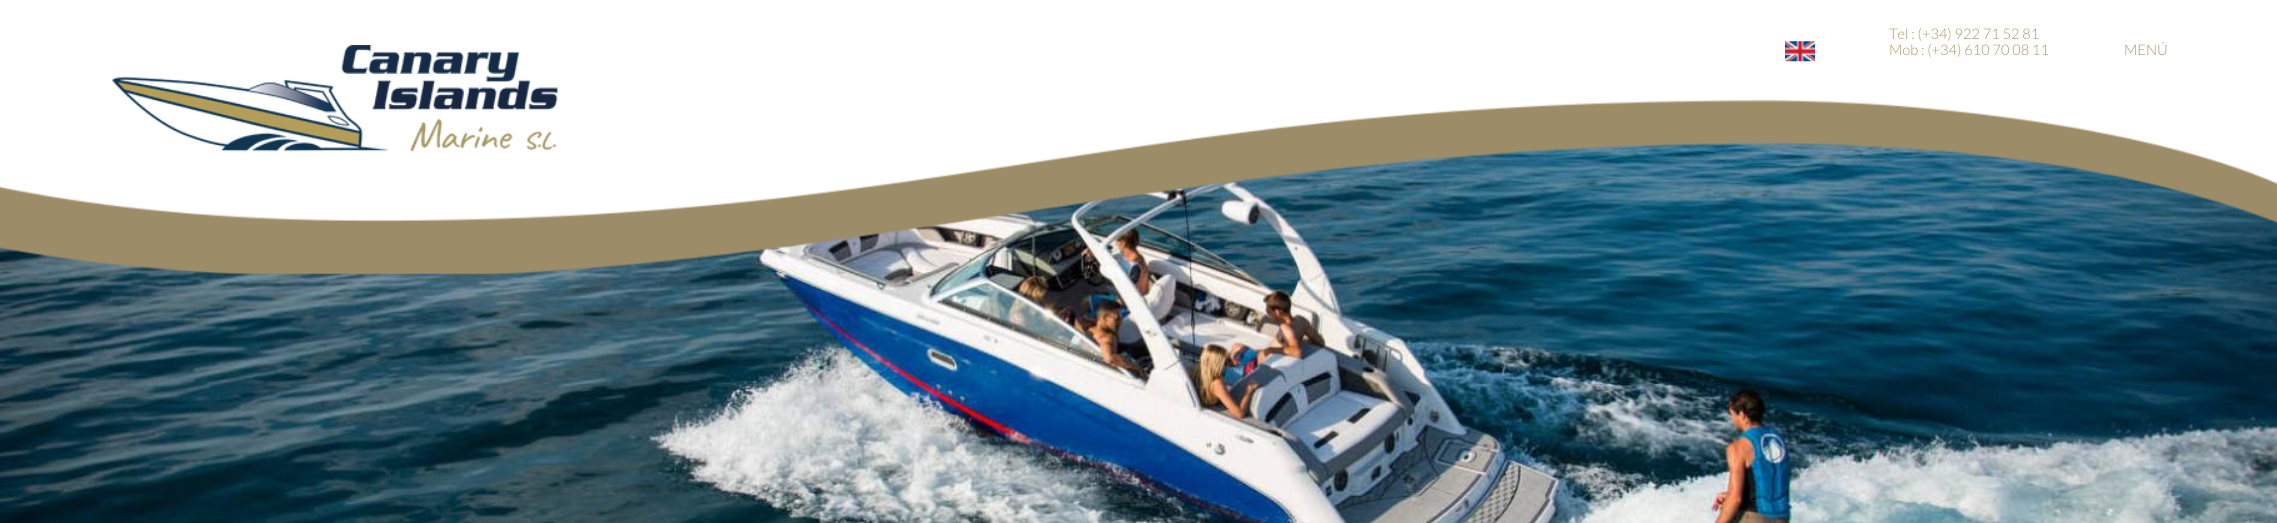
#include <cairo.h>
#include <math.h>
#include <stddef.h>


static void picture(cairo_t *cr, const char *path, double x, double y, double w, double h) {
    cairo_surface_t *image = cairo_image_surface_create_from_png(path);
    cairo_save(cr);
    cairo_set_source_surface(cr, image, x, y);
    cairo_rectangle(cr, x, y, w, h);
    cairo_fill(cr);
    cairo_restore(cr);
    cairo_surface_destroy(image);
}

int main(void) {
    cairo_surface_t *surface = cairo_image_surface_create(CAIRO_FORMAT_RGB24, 2277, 523);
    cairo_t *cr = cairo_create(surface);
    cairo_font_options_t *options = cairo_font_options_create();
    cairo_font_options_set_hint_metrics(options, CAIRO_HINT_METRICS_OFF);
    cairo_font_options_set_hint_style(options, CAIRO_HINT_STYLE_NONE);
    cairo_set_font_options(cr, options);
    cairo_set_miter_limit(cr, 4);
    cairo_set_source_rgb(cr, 1, 1, 1);
    cairo_paint(cr);
    picture(cr, "img4.png", 0, 142, 2277, 381);
    picture(cr, "img1.png", 0, 96, 2277, 178);
    picture(cr, "img2.png", 1785, 41, 30, 21);
    cairo_select_font_face(cr, "Lato Light", CAIRO_FONT_SLANT_NORMAL, CAIRO_FONT_WEIGHT_NORMAL);
    cairo_set_font_size(cr, 14.6);
    cairo_set_source_rgb(cr, 0.655, 0.592, 0.392);
    cairo_move_to(cr, 1889, 39);
    cairo_show_text(cr, "Tel : (+34) 922 71 52 81");
    cairo_move_to(cr, 1889, 55);
    cairo_show_text(cr, "Mob : (+34) 610 70 08 11");
    cairo_move_to(cr, 2124, 55);
    cairo_show_text(cr, "MENÚ");
    picture(cr, "img3.png", 112, 45, 446, 107);
    cairo_surface_write_to_png(surface, "page.png");
    cairo_font_options_destroy(options);
    cairo_destroy(cr);
    cairo_surface_destroy(surface);
    return 0;
}
